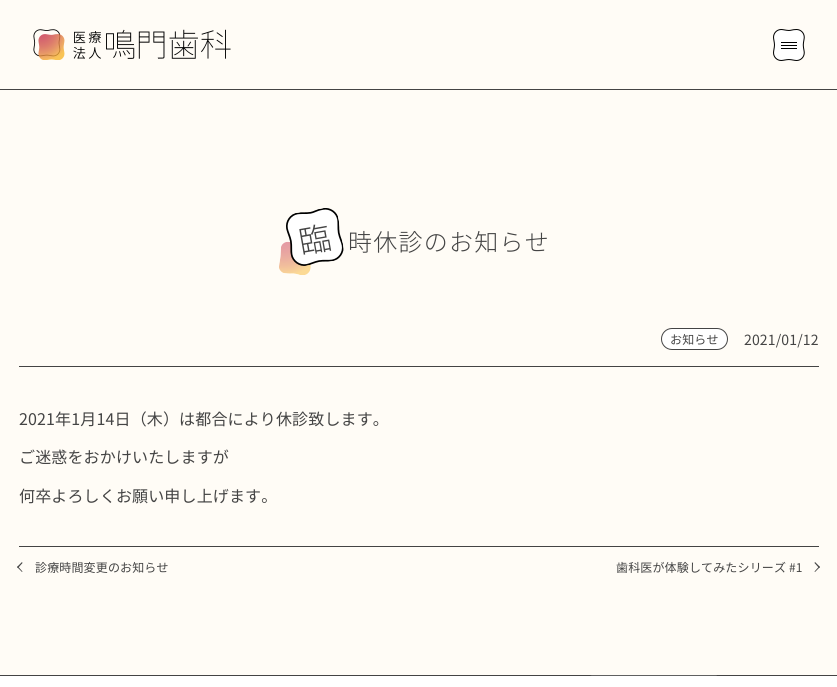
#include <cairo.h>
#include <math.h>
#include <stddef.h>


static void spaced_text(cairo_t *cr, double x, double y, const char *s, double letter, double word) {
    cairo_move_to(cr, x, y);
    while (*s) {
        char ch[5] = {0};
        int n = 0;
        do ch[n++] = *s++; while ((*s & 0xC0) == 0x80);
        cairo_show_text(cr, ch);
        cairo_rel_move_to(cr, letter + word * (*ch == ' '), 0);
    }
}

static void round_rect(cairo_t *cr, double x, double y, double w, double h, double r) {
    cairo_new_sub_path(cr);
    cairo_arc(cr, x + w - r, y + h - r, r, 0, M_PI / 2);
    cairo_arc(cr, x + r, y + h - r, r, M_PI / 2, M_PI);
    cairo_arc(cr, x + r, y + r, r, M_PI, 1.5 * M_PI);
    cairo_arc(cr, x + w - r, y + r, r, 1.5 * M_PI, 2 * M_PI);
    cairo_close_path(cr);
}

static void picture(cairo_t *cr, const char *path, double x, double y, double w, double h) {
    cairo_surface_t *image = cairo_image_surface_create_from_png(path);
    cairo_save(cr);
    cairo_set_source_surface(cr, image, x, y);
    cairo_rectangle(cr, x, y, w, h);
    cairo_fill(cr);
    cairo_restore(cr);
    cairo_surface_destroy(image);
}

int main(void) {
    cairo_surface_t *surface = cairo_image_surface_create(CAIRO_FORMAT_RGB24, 837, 687);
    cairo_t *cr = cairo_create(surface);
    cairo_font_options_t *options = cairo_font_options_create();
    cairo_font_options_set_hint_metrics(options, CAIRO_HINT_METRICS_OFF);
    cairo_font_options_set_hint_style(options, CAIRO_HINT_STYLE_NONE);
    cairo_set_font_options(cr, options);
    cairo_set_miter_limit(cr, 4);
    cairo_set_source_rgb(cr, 1, 0.988, 0.961);
    cairo_paint(cr);
    cairo_set_source_rgb(cr, 0.267, 0.267, 0.267);
    cairo_rectangle(cr, 0, 89, 837, 1);
    cairo_fill(cr);
    picture(cr, "img1.png", 33, 29, 198, 31);
    picture(cr, "img2.png", 773, 29, 32, 32);
    cairo_set_source_rgb(cr, 0, 0, 0);
    cairo_rectangle(cr, 781, 42, 16, 1);
    cairo_fill(cr);
    cairo_rectangle(cr, 781, 45, 16, 1);
    cairo_fill(cr);
    cairo_rectangle(cr, 781, 48, 16, 1);
    cairo_fill(cr);
    picture(cr, "img4.png", 279, 241, 32, 34);
    picture(cr, "img3.png", 286, 208, 58, 58);
    cairo_select_font_face(cr, "Noto Sans JP Light", CAIRO_FONT_SLANT_NORMAL, CAIRO_FONT_WEIGHT_NORMAL);
    cairo_set_font_size(cr, 32);
    cairo_set_source_rgb(cr, 0.267, 0.267, 0.267);
    cairo_save(cr);
    cairo_translate(cr, 301, 254);
    cairo_rotate(cr, -10 * M_PI / 180);
    spaced_text(cr, 0, 0, "臨", 1.25, 0);
    cairo_restore(cr);
    cairo_set_font_size(cr, 24);
    spaced_text(cr, 348, 251, "時休診のお知らせ", 1.25, 0);
    cairo_rectangle(cr, 19, 366, 800, 1);
    cairo_fill(cr);
    cairo_set_source_rgb(cr, 1, 1, 1);
    round_rect(cr, 661.5, 328.5, 66, 21, 10.5);
    cairo_fill_preserve(cr);
    cairo_set_source_rgb(cr, 0.267, 0.267, 0.267);
    cairo_set_line_width(cr, 1);
    cairo_stroke(cr);
    cairo_select_font_face(cr, "Noto Sans JP", CAIRO_FONT_SLANT_NORMAL, CAIRO_FONT_WEIGHT_NORMAL);
    cairo_set_font_size(cr, 12);
    spaced_text(cr, 670, 344, "お知らせ", 0.15, 0);
    cairo_set_font_size(cr, 14);
    spaced_text(cr, 744, 345, "2021/01/12", 0.15, 0);
    cairo_rectangle(cr, 19, 546, 800, 1);
    cairo_fill(cr);
    cairo_set_font_size(cr, 16);
    spaced_text(cr, 19, 425, "2021年1月14日（木）は都合により休診致します。", 0.15, 0);
    spaced_text(cr, 19, 463, "ご迷惑をおかけいたしますが", 0.15, 0);
    spaced_text(cr, 19, 502, "何卒よろしくお願い申し上げます。", 0.15, 0);
    cairo_new_path(cr);
    cairo_move_to(cr, 22, 572);
    cairo_line_to(cr, 17, 567);
    cairo_line_to(cr, 18, 566.5);
    cairo_line_to(cr, 22.5, 571.5);
    cairo_close_path(cr);
    cairo_fill(cr);
    cairo_new_path(cr);
    cairo_move_to(cr, 18, 568);
    cairo_line_to(cr, 17, 567);
    cairo_line_to(cr, 22, 562);
    cairo_line_to(cr, 22.5, 563);
    cairo_close_path(cr);
    cairo_fill(cr);
    cairo_set_font_size(cr, 12);
    spaced_text(cr, 35, 572, "診療時間変更のお知らせ", 0.15, 0);
    spaced_text(cr, 616, 572, "歯科医が体験してみたシリーズ #1", 0.15, 0);
    cairo_new_path(cr);
    cairo_move_to(cr, 815, 562);
    cairo_line_to(cr, 820, 567);
    cairo_line_to(cr, 819, 568);
    cairo_line_to(cr, 814.5, 563);
    cairo_close_path(cr);
    cairo_fill(cr);
    cairo_new_path(cr);
    cairo_move_to(cr, 819, 566.5);
    cairo_line_to(cr, 820, 567);
    cairo_line_to(cr, 815, 572);
    cairo_line_to(cr, 814.5, 571.5);
    cairo_close_path(cr);
    cairo_fill(cr);
    cairo_set_source_rgb(cr, 1, 1, 1);
    cairo_rectangle(cr, 0, 676, 837, 11);
    cairo_fill(cr);
    cairo_set_source_rgb(cr, 0.267, 0.267, 0.267);
    cairo_rectangle(cr, 0, 675, 837, 1);
    cairo_fill(cr);
    picture(cr, "img5.png", 590, 675, 127, 1);
    cairo_surface_write_to_png(surface, "page.png");
    cairo_font_options_destroy(options);
    cairo_destroy(cr);
    cairo_surface_destroy(surface);
    return 0;
}
